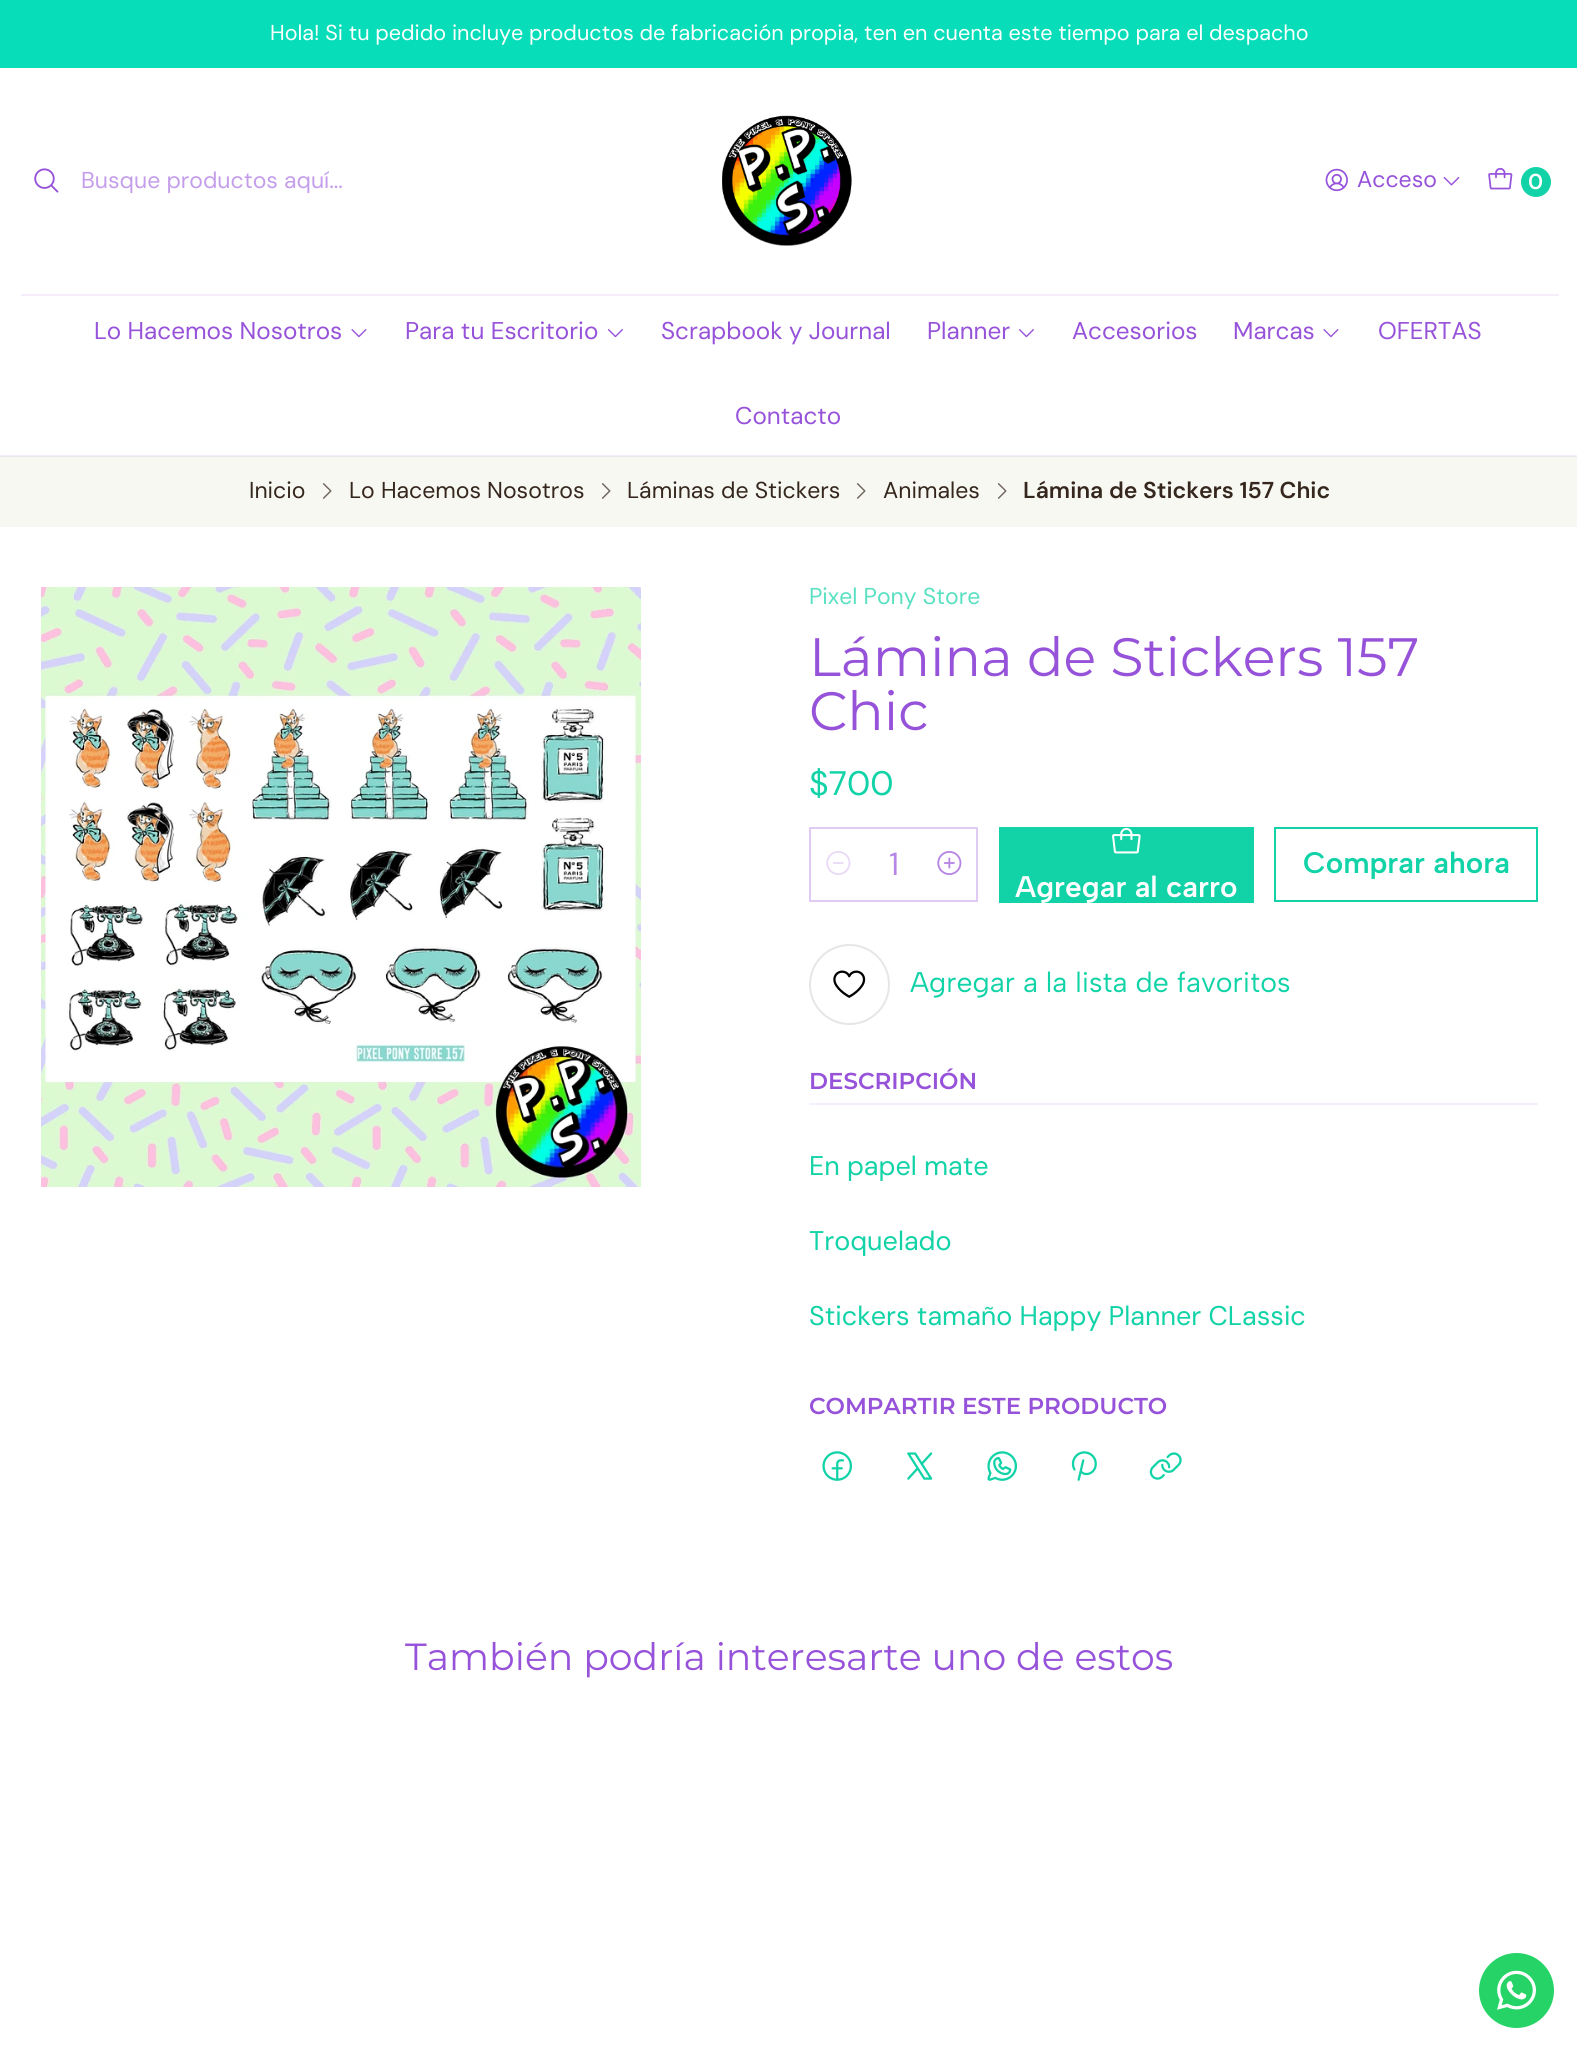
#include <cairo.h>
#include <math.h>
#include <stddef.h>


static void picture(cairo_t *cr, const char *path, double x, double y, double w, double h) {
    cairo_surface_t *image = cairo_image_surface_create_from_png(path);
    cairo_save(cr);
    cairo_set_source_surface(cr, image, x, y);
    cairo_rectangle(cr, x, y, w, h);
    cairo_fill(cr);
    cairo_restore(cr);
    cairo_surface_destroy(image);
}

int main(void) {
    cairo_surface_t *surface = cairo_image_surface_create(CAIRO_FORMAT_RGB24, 1577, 2052);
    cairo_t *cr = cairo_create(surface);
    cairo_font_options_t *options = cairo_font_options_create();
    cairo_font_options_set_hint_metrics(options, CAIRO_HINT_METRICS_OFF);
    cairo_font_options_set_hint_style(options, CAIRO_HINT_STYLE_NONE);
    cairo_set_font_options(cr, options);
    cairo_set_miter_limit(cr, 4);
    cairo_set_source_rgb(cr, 1, 1, 1);
    cairo_paint(cr);
    cairo_set_source_rgb(cr, 0.961, 0.933, 0.984);
    cairo_rectangle(cr, 0, 455, 1577, 1);
    cairo_fill(cr);
    cairo_set_source_rgb(cr, 0.031, 0.867, 0.722);
    cairo_rectangle(cr, 0, 0, 1577, 68);
    cairo_fill(cr);
    cairo_select_font_face(cr, "DM Sans", CAIRO_FONT_SLANT_NORMAL, CAIRO_FONT_WEIGHT_NORMAL);
    cairo_set_font_size(cr, 21.6);
    cairo_set_source_rgb(cr, 1, 1, 1);
    cairo_move_to(cr, 270, 40);
    cairo_show_text(cr, "Hola! Si tu pedido incluye productos de fabricación propia, ten en cuenta este tiempo para el despacho");
    picture(cr, "img1.png", 34, 168, 25, 25);
    cairo_set_font_size(cr, 23);
    cairo_set_source_rgb(cr, 0.773, 0.62, 0.918);
    cairo_move_to(cr, 81, 188);
    cairo_show_text(cr, "Busque productos aquí...");
    picture(cr, "img2.png", 722, 115, 130, 131);
    picture(cr, "img3.png", 1325, 168, 23, 24);
    cairo_set_source_rgb(cr, 0.592, 0.322, 0.855);
    cairo_move_to(cr, 1357, 187);
    cairo_show_text(cr, "Acceso");
    picture(cr, "img4.png", 1443, 176, 17, 10);
    picture(cr, "img5.png", 1488, 167, 25, 23);
    cairo_set_source_rgb(cr, 0.071, 0.827, 0.655);
    cairo_arc(cr, 1536, 182, 15, 0, 2 * M_PI);
    cairo_fill(cr);
    cairo_select_font_face(cr, "DM Sans SemiBold", CAIRO_FONT_SLANT_NORMAL, CAIRO_FONT_WEIGHT_NORMAL);
    cairo_set_font_size(cr, 21.6);
    cairo_set_source_rgb(cr, 1, 1, 1);
    cairo_move_to(cr, 1528, 189);
    cairo_show_text(cr, "0");
    cairo_set_source_rgb(cr, 0.961, 0.933, 0.984);
    cairo_rectangle(cr, 21, 294, 1538, 2);
    cairo_fill(cr);
    cairo_select_font_face(cr, "DM Sans", CAIRO_FONT_SLANT_NORMAL, CAIRO_FONT_WEIGHT_NORMAL);
    cairo_set_font_size(cr, 24.25);
    cairo_set_source_rgb(cr, 0.592, 0.322, 0.855);
    cairo_move_to(cr, 94, 339);
    cairo_show_text(cr, "Lo Hacemos Nosotros");
    picture(cr, "img6.png", 351, 329, 16, 9);
    cairo_move_to(cr, 405, 339);
    cairo_show_text(cr, "Para tu Escritorio");
    picture(cr, "img7.png", 607, 329, 16, 9);
    cairo_move_to(cr, 661, 339);
    cairo_show_text(cr, "Scrapbook y Journal");
    cairo_move_to(cr, 927, 339);
    cairo_show_text(cr, "Planner");
    picture(cr, "img7.png", 1018, 329, 16, 9);
    cairo_move_to(cr, 1072, 339);
    cairo_show_text(cr, "Accesorios");
    cairo_move_to(cr, 1233, 339);
    cairo_show_text(cr, "Marcas");
    picture(cr, "img6.png", 1323, 329, 16, 9);
    cairo_move_to(cr, 1378, 339);
    cairo_show_text(cr, "OFERTAS");
    cairo_move_to(cr, 735, 424);
    cairo_show_text(cr, "Contacto");
    cairo_set_source_rgb(cr, 0.969, 0.969, 0.949);
    cairo_rectangle(cr, 0, 457, 1577, 70);
    cairo_fill(cr);
    cairo_set_source_rgb(cr, 0.929, 0.906, 0.941);
    cairo_rectangle(cr, 0, 456, 1577, 1);
    cairo_fill(cr);
    cairo_set_font_size(cr, 23);
    cairo_set_source_rgb(cr, 0.208, 0.153, 0.114);
    cairo_move_to(cr, 249, 498);
    cairo_show_text(cr, "Inicio");
    picture(cr, "img8.png", 322, 483, 10, 16);
    cairo_move_to(cr, 349, 498);
    cairo_show_text(cr, "Lo Hacemos Nosotros");
    picture(cr, "img8.png", 601, 483, 10, 16);
    cairo_move_to(cr, 627, 498);
    cairo_show_text(cr, "Láminas de Stickers");
    picture(cr, "img8.png", 856, 483, 10, 16);
    cairo_move_to(cr, 883, 498);
    cairo_show_text(cr, "Animales");
    picture(cr, "img8.png", 997, 483, 10, 16);
    cairo_select_font_face(cr, "DM Sans SemiBold", CAIRO_FONT_SLANT_NORMAL, CAIRO_FONT_WEIGHT_NORMAL);
    cairo_move_to(cr, 1023, 498);
    cairo_show_text(cr, "Lámina de Stickers 157 Chic");
    picture(cr, "img9.png", 41, 587, 600, 600);
    cairo_select_font_face(cr, "DM Sans", CAIRO_FONT_SLANT_NORMAL, CAIRO_FONT_WEIGHT_NORMAL);
    cairo_set_source_rgb(cr, 0.349, 0.878, 0.757);
    cairo_move_to(cr, 809, 604);
    cairo_show_text(cr, "Pixel Pony Store");
    cairo_select_font_face(cr, "Montserrat", CAIRO_FONT_SLANT_NORMAL, CAIRO_FONT_WEIGHT_NORMAL);
    cairo_set_font_size(cr, 54);
    cairo_set_source_rgb(cr, 0.592, 0.322, 0.855);
    cairo_move_to(cr, 809, 676);
    cairo_show_text(cr, "Lámina de Stickers 157");
    cairo_move_to(cr, 809, 730);
    cairo_show_text(cr, "Chic");
    cairo_select_font_face(cr, "DM Sans", CAIRO_FONT_SLANT_NORMAL, CAIRO_FONT_WEIGHT_NORMAL);
    cairo_set_font_size(cr, 34);
    cairo_set_source_rgb(cr, 0.071, 0.827, 0.655);
    cairo_move_to(cr, 809, 795);
    cairo_show_text(cr, "$700");
    cairo_rectangle(cr, 810, 828, 167, 73);
    cairo_set_source_rgb(cr, 0.878, 0.796, 0.957);
    cairo_stroke(cr);
    picture(cr, "img10.png", 826, 851, 25, 24);
    cairo_set_font_size(cr, 32);
    cairo_set_source_rgb(cr, 0.714, 0.525, 0.898);
    cairo_move_to(cr, 889, 875);
    cairo_show_text(cr, "1");
    picture(cr, "img11.png", 937, 850, 25, 26);
    cairo_rectangle(cr, 1275, 828, 262, 73);
    cairo_set_source_rgb(cr, 0.071, 0.827, 0.655);
    cairo_stroke(cr);
    cairo_select_font_face(cr, "Albert Sans SemiBold", CAIRO_FONT_SLANT_NORMAL, CAIRO_FONT_WEIGHT_NORMAL);
    cairo_set_font_size(cr, 29.75);
    cairo_move_to(cr, 1303, 873);
    cairo_show_text(cr, "Comprar ahora");
    cairo_rectangle(cr, 999, 827, 255, 76);
    cairo_fill(cr);
    picture(cr, "img12.png", 1112, 827, 29, 27);
    cairo_set_source_rgb(cr, 1, 1, 1);
    cairo_move_to(cr, 1015, 897);
    cairo_show_text(cr, "Agregar al carro");
    cairo_new_path(cr);
    cairo_arc(cr, 849.5, 984.5, 39.5, 0, 2 * M_PI);
    cairo_set_source_rgb(cr, 0.902, 0.902, 0.902);
    cairo_stroke(cr);
    picture(cr, "img13.png", 833, 970, 33, 28);
    cairo_select_font_face(cr, "Albert Sans", CAIRO_FONT_SLANT_NORMAL, CAIRO_FONT_WEIGHT_NORMAL);
    cairo_set_font_size(cr, 28.4);
    cairo_set_source_rgb(cr, 0.071, 0.827, 0.655);
    cairo_move_to(cr, 910, 992);
    cairo_show_text(cr, "Agregar a la lista de favoritos");
    cairo_set_source_rgb(cr, 0.961, 0.933, 0.984);
    cairo_rectangle(cr, 809, 1103, 729, 2);
    cairo_fill(cr);
    cairo_select_font_face(cr, "Montserrat SemiBold", CAIRO_FONT_SLANT_NORMAL, CAIRO_FONT_WEIGHT_NORMAL);
    cairo_set_font_size(cr, 23);
    cairo_set_source_rgb(cr, 0.592, 0.322, 0.855);
    cairo_move_to(cr, 809, 1089);
    cairo_show_text(cr, "DESCRIPCIÓN");
    cairo_select_font_face(cr, "DM Sans", CAIRO_FONT_SLANT_NORMAL, CAIRO_FONT_WEIGHT_NORMAL);
    cairo_set_font_size(cr, 27);
    cairo_set_source_rgb(cr, 0.071, 0.827, 0.655);
    cairo_move_to(cr, 809, 1175);
    cairo_show_text(cr, "En papel mate");
    cairo_move_to(cr, 809, 1250);
    cairo_show_text(cr, "Troquelado");
    cairo_move_to(cr, 809, 1325);
    cairo_show_text(cr, "Stickers tamaño Happy Planner CLassic");
    cairo_select_font_face(cr, "Montserrat SemiBold", CAIRO_FONT_SLANT_NORMAL, CAIRO_FONT_WEIGHT_NORMAL);
    cairo_set_font_size(cr, 23);
    cairo_set_source_rgb(cr, 0.592, 0.322, 0.855);
    cairo_move_to(cr, 809, 1414);
    cairo_show_text(cr, "COMPARTIR ESTE PRODUCTO");
    picture(cr, "img14.png", 822, 1451, 30, 30);
    picture(cr, "img15.png", 907, 1452, 26, 28);
    picture(cr, "img16.png", 987, 1451, 30, 30);
    picture(cr, "img17.png", 1071, 1451, 26, 30);
    picture(cr, "img18.png", 1149, 1452, 33, 28);
    cairo_select_font_face(cr, "Montserrat", CAIRO_FONT_SLANT_NORMAL, CAIRO_FONT_WEIGHT_NORMAL);
    cairo_set_font_size(cr, 37.8);
    cairo_move_to(cr, 405, 1670);
    cairo_show_text(cr, "También podría interesarte uno de estos");
    cairo_set_source_rgb(cr, 0.145, 0.827, 0.4);
    cairo_new_path(cr);
    cairo_arc(cr, 1516.5, 1990.5, 37.5, 0, 2 * M_PI);
    cairo_fill(cr);
    picture(cr, "img19.png", 1497, 1970, 39, 40);
    cairo_surface_write_to_png(surface, "page.png");
    cairo_font_options_destroy(options);
    cairo_destroy(cr);
    cairo_surface_destroy(surface);
    return 0;
}
